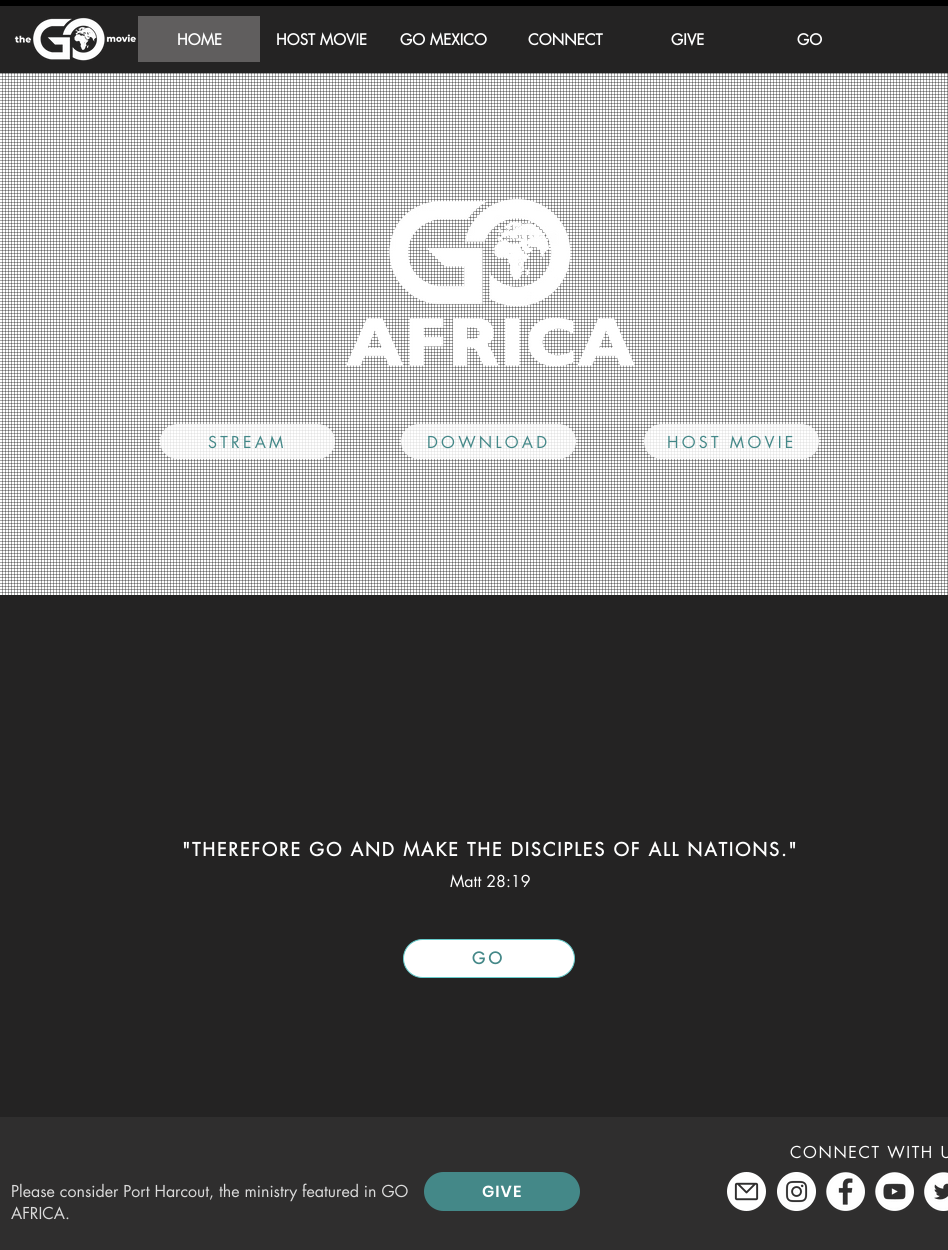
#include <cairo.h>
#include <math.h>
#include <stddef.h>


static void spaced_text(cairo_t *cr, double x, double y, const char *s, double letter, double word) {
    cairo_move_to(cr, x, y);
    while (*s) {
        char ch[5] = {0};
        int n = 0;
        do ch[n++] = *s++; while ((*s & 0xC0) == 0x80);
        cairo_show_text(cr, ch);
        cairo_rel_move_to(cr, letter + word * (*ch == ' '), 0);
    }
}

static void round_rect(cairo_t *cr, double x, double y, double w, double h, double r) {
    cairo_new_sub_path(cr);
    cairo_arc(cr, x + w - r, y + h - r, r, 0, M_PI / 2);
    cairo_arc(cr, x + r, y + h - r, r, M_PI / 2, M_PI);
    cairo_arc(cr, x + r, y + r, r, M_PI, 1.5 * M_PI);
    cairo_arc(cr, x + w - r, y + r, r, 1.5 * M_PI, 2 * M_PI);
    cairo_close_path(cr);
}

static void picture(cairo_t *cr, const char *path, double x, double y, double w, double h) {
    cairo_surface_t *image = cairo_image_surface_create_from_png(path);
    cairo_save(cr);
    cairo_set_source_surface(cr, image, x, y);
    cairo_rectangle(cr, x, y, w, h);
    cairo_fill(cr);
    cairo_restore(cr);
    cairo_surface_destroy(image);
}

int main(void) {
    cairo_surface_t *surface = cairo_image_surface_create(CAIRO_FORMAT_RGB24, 948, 1250);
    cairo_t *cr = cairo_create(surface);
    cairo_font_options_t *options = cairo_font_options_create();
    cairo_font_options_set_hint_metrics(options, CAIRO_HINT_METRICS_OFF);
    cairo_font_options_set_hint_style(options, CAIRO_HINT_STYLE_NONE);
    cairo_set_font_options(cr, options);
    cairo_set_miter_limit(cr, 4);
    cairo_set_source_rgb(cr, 1, 1, 1);
    cairo_paint(cr);
    cairo_set_source_rgb(cr, 0, 0, 0);
    cairo_rectangle(cr, 0, 0, 948, 6);
    cairo_fill(cr);
    cairo_set_source_rgb(cr, 0.141, 0.137, 0.137);
    cairo_rectangle(cr, 0, 6, 948, 67);
    cairo_fill(cr);
    picture(cr, "img1.png", 14, 17, 122, 44);
    cairo_set_source_rgb(cr, 0.376, 0.369, 0.369);
    cairo_rectangle(cr, 138, 16, 122, 46);
    cairo_fill(cr);
    cairo_select_font_face(cr, "futura", CAIRO_FONT_SLANT_NORMAL, CAIRO_FONT_WEIGHT_BOLD);
    cairo_set_font_size(cr, 15);
    cairo_set_source_rgb(cr, 1, 1, 1);
    cairo_move_to(cr, 177, 45);
    cairo_show_text(cr, "HOME");
    cairo_move_to(cr, 276, 45);
    cairo_show_text(cr, "HOST MOVIE");
    cairo_move_to(cr, 400, 45);
    cairo_show_text(cr, "GO MEXICO");
    cairo_move_to(cr, 528, 45);
    cairo_show_text(cr, "CONNECT");
    cairo_move_to(cr, 671, 45);
    cairo_show_text(cr, "GIVE");
    cairo_move_to(cr, 797, 45);
    cairo_show_text(cr, "GO");
    picture(cr, "img8.png", 0, 73, 948, 522);
    picture(cr, "img2.png", 346, 198, 289, 169);
    cairo_set_source_rgba(cr, 1, 1, 1, 0.82);
    round_rect(cr, 160, 424, 175, 35, 17.5);
    cairo_fill(cr);
    cairo_select_font_face(cr, "futura", CAIRO_FONT_SLANT_NORMAL, CAIRO_FONT_WEIGHT_NORMAL);
    cairo_set_font_size(cr, 16);
    cairo_set_source_rgb(cr, 0.267, 0.533, 0.533);
    spaced_text(cr, 208, 448, "STREAM", 3.25, 0);
    cairo_set_source_rgba(cr, 1, 1, 1, 0.82);
    round_rect(cr, 401, 424, 175, 35, 17.5);
    cairo_fill(cr);
    cairo_set_source_rgb(cr, 0.267, 0.533, 0.533);
    spaced_text(cr, 427, 448, "DOWNLOAD", 3.25, 0);
    cairo_set_source_rgba(cr, 1, 1, 1, 0.82);
    round_rect(cr, 644, 424, 175, 35, 17.5);
    cairo_fill(cr);
    cairo_set_source_rgb(cr, 0.267, 0.533, 0.533);
    spaced_text(cr, 667, 448, "HOST MOVIE", 3.25, 0);
    cairo_set_source_rgb(cr, 0.141, 0.137, 0.137);
    cairo_rectangle(cr, 0, 595, 948, 522);
    cairo_fill(cr);
    cairo_select_font_face(cr, "futura", CAIRO_FONT_SLANT_NORMAL, CAIRO_FONT_WEIGHT_BOLD);
    cairo_set_font_size(cr, 18);
    cairo_set_source_rgb(cr, 1, 1, 1);
    spaced_text(cr, 182, 856, "\"THEREFORE GO AND MAKE THE DISCIPLES OF ALL NATIONS.\"", 1.8, 0);
    cairo_select_font_face(cr, "futura", CAIRO_FONT_SLANT_NORMAL, CAIRO_FONT_WEIGHT_NORMAL);
    cairo_set_font_size(cr, 16);
    cairo_move_to(cr, 450, 887);
    cairo_show_text(cr, "Matt 28:19");
    round_rect(cr, 403.5, 939.5, 171, 38, 19);
    cairo_fill_preserve(cr);
    cairo_set_source_rgb(cr, 0.4, 0.8, 0.8);
    cairo_set_line_width(cr, 1);
    cairo_stroke(cr);
    cairo_select_font_face(cr, "futura", CAIRO_FONT_SLANT_NORMAL, CAIRO_FONT_WEIGHT_BOLD);
    cairo_set_source_rgb(cr, 0.267, 0.533, 0.533);
    spaced_text(cr, 472, 964, "GO", 3.25, 0);
    cairo_set_source_rgb(cr, 0.184, 0.18, 0.18);
    cairo_rectangle(cr, 0, 1117, 948, 133);
    cairo_fill(cr);
    cairo_select_font_face(cr, "futura", CAIRO_FONT_SLANT_NORMAL, CAIRO_FONT_WEIGHT_NORMAL);
    cairo_set_source_rgb(cr, 1, 1, 1);
    spaced_text(cr, 790, 1158, "CONNECT WITH U", 1.6, 0);
    cairo_set_source_rgb(cr, 0.859, 0.859, 0.859);
    cairo_move_to(cr, 11, 1197);
    cairo_show_text(cr, "Please consider Port Harcout, the ministry featured in GO");
    cairo_move_to(cr, 11, 1219);
    cairo_show_text(cr, "AFRICA.");
    cairo_set_source_rgb(cr, 0.267, 0.533, 0.533);
    round_rect(cr, 424, 1172, 156, 39, 19.5);
    cairo_fill(cr);
    cairo_select_font_face(cr, "Poppins SemiBold", CAIRO_FONT_SLANT_NORMAL, CAIRO_FONT_WEIGHT_NORMAL);
    cairo_set_source_rgb(cr, 1, 1, 1);
    spaced_text(cr, 482, 1197, "GIVE", 1, 0);
    cairo_new_path(cr);
    cairo_arc(cr, 746.5, 1191.5, 19.5, 0, 2 * M_PI);
    cairo_fill(cr);
    picture(cr, "img3.png", 734, 1182, 25, 19);
    picture(cr, "img4.png", 777, 1172, 39, 39);
    picture(cr, "img5.png", 826, 1172, 39, 39);
    picture(cr, "img6.png", 875, 1172, 39, 39);
    picture(cr, "img7.png", 924, 1172, 24, 39);
    cairo_surface_write_to_png(surface, "page.png");
    cairo_font_options_destroy(options);
    cairo_destroy(cr);
    cairo_surface_destroy(surface);
    return 0;
}
